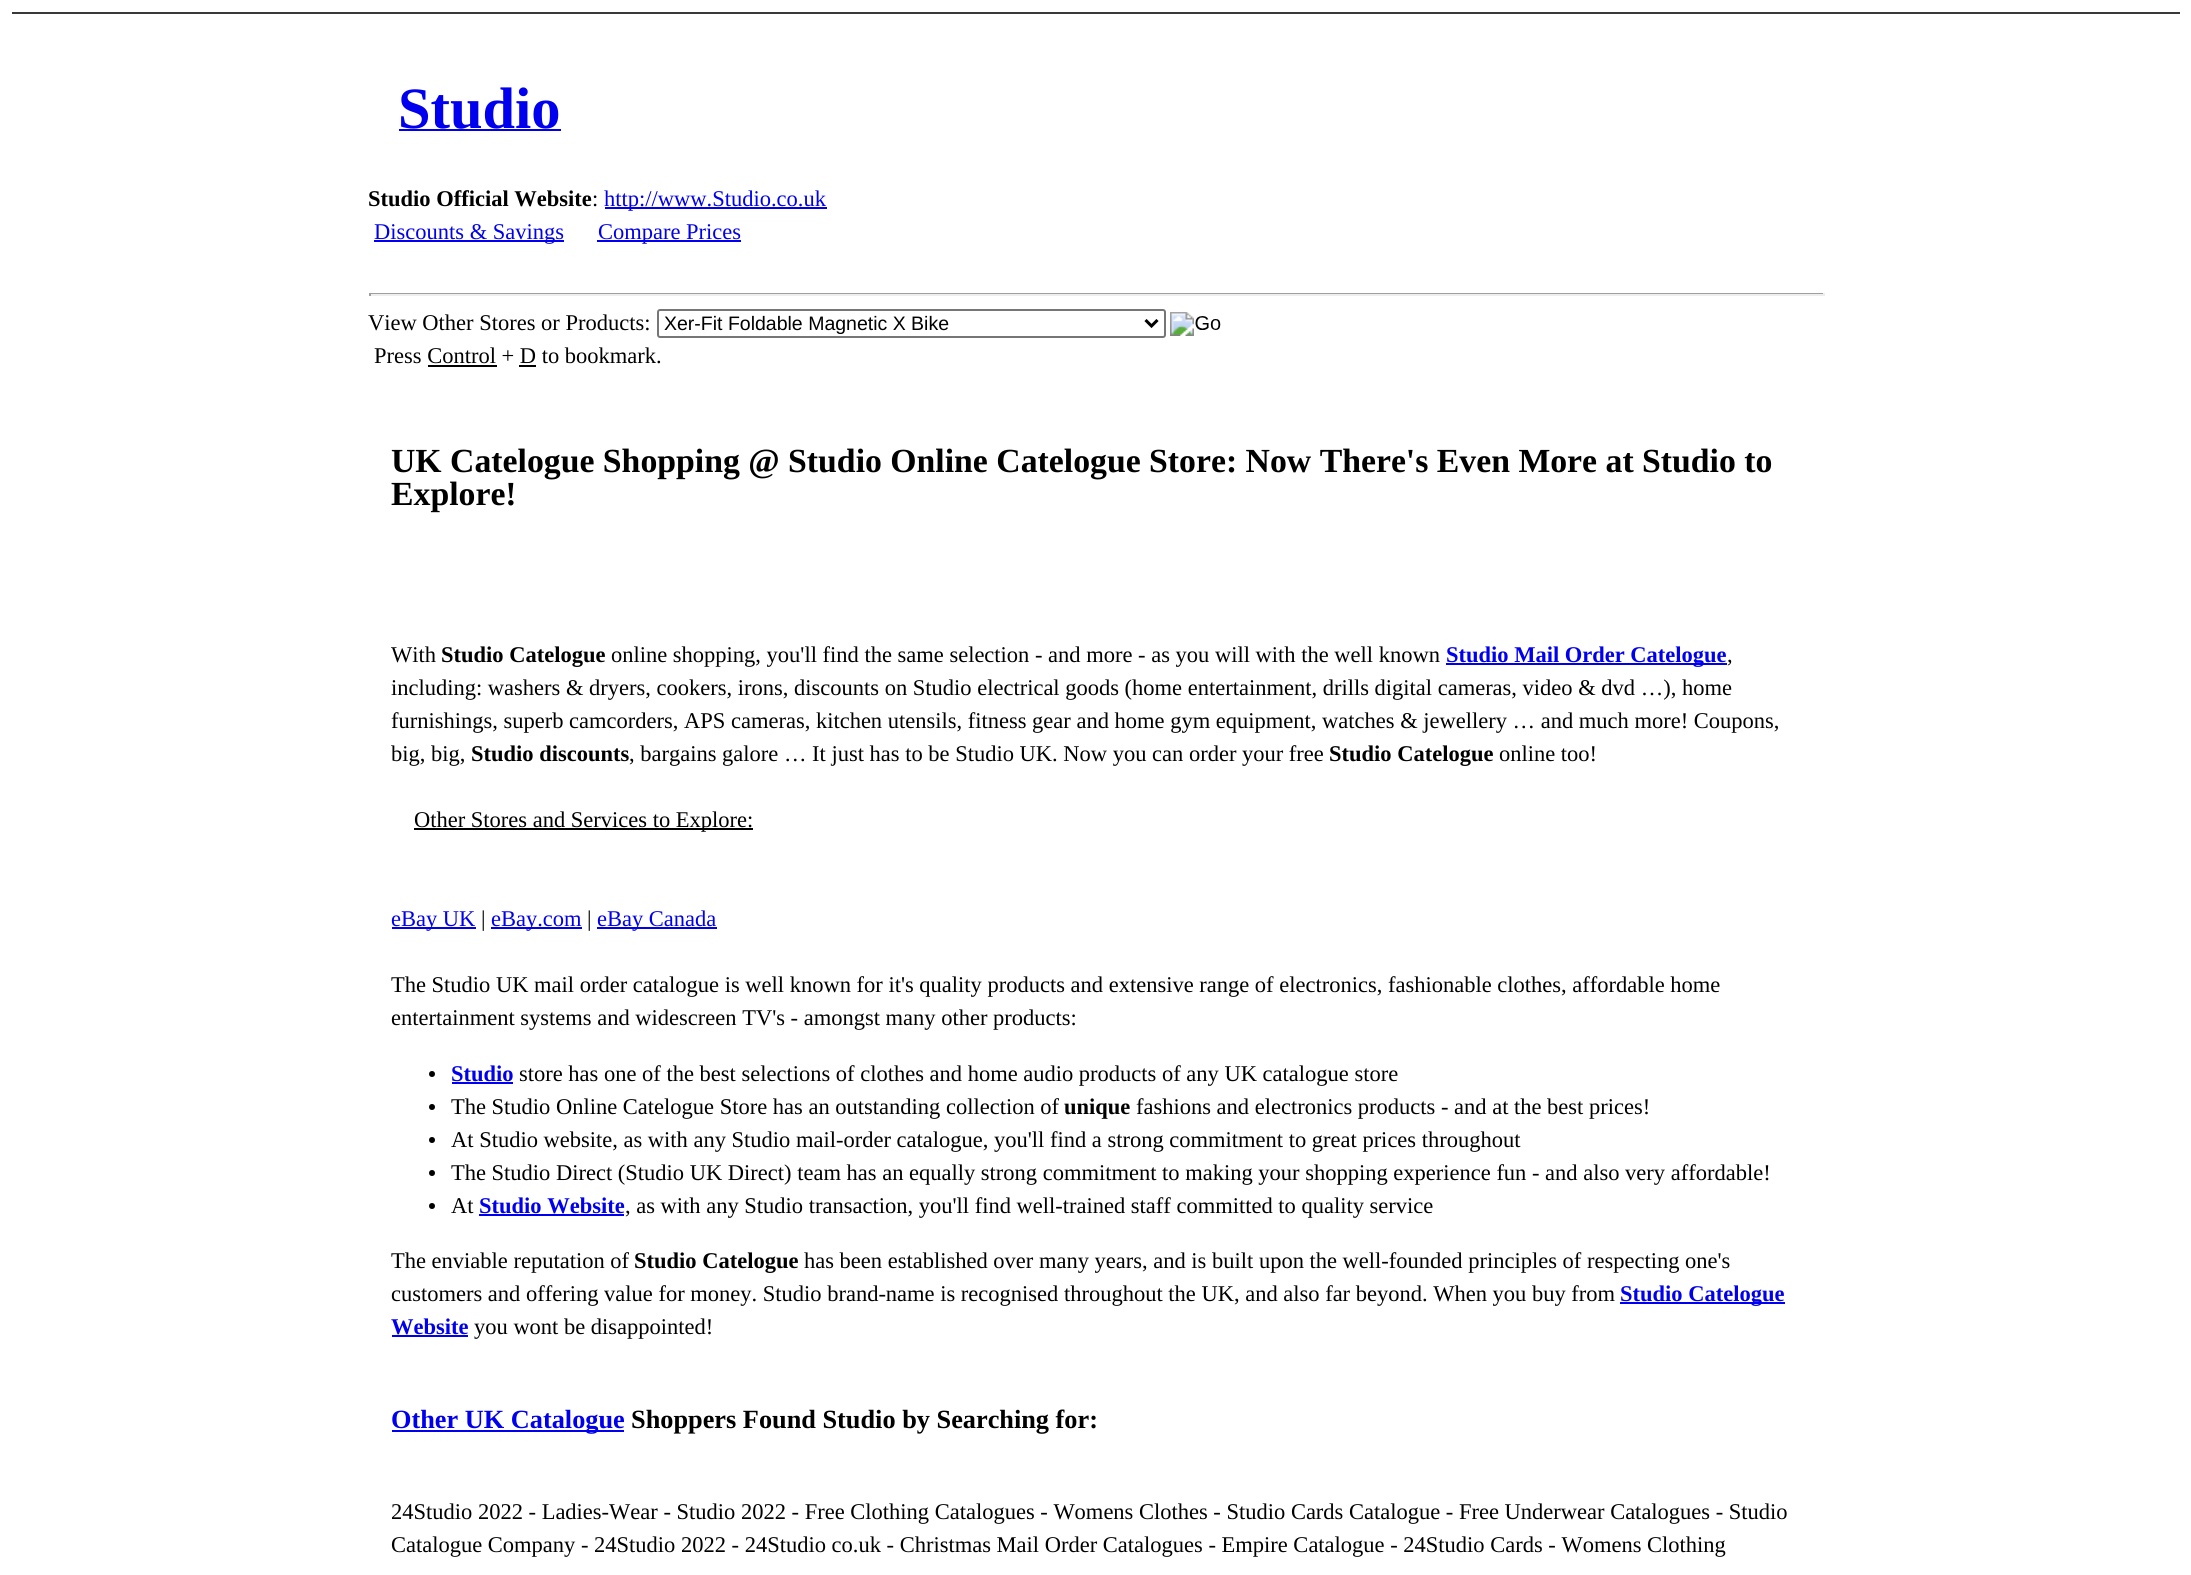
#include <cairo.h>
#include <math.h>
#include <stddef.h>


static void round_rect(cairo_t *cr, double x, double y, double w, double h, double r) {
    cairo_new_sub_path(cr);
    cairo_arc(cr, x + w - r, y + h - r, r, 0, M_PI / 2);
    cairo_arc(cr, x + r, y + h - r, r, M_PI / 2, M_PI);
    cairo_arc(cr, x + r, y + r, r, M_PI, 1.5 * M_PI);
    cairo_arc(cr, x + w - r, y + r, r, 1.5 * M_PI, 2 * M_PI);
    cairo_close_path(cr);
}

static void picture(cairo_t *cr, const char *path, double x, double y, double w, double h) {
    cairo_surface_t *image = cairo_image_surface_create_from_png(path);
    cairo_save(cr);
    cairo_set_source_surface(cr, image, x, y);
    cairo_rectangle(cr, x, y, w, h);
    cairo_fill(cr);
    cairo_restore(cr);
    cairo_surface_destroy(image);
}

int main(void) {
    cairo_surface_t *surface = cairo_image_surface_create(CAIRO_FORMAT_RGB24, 2191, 1575);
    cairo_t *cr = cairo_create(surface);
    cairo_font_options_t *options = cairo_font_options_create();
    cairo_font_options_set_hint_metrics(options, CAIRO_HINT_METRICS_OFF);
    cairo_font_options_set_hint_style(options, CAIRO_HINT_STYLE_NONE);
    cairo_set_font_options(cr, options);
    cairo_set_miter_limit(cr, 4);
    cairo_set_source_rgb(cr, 1, 1, 1);
    cairo_paint(cr);
    cairo_set_source_rgb(cr, 0.224, 0.224, 0.224);
    cairo_rectangle(cr, 12, 12, 2168, 2);
    cairo_fill(cr);
    cairo_select_font_face(cr, "Liberation Serif", CAIRO_FONT_SLANT_NORMAL, CAIRO_FONT_WEIGHT_BOLD);
    cairo_set_font_size(cr, 58.5);
    cairo_set_source_rgb(cr, 0, 0, 0.933);
    cairo_move_to(cr, 398, 128);
    cairo_show_text(cr, "Studio");
    cairo_rectangle(cr, 399, 129, 162, 2);
    cairo_fill(cr);
    cairo_set_font_size(cr, 22.5);
    cairo_set_source_rgb(cr, 0, 0, 0);
    cairo_move_to(cr, 368, 206);
    cairo_show_text(cr, "Studio Official Website");
    cairo_select_font_face(cr, "Liberation Serif", CAIRO_FONT_SLANT_NORMAL, CAIRO_FONT_WEIGHT_NORMAL);
    cairo_move_to(cr, 592, 206);
    cairo_show_text(cr, ":");
    cairo_set_source_rgb(cr, 0, 0, 0.933);
    cairo_rectangle(cr, 605, 207, 222, 2);
    cairo_fill(cr);
    cairo_move_to(cr, 604, 206);
    cairo_show_text(cr, "http://www.Studio.co.uk");
    cairo_rectangle(cr, 374, 240, 190, 2);
    cairo_fill(cr);
    cairo_move_to(cr, 374, 239);
    cairo_show_text(cr, "Discounts & Savings");
    cairo_rectangle(cr, 597, 240, 144, 2);
    cairo_fill(cr);
    cairo_move_to(cr, 598, 239);
    cairo_show_text(cr, "Compare Prices");
    cairo_set_source_rgb(cr, 0.624, 0.624, 0.624);
    cairo_rectangle(cr, 369, 293, 1455, 1);
    cairo_fill(cr);
    cairo_set_source_rgb(cr, 0.933, 0.933, 0.933);
    cairo_rectangle(cr, 1823, 293, 2, 3);
    cairo_fill(cr);
    cairo_rectangle(cr, 369, 294, 1455, 2);
    cairo_fill(cr);
    cairo_set_source_rgb(cr, 0.624, 0.624, 0.624);
    cairo_rectangle(cr, 369, 293, 2, 3);
    cairo_fill(cr);
    cairo_set_source_rgb(cr, 0, 0, 0);
    cairo_move_to(cr, 368, 330);
    cairo_show_text(cr, "View Other Stores or Products:");
    round_rect(cr, 658, 310, 507, 27, 2);
    cairo_set_source_rgb(cr, 0.463, 0.463, 0.463);
    cairo_stroke(cr);
    cairo_new_path(cr);
    cairo_move_to(cr, 1145.5, 320);
    cairo_line_to(cr, 1151.5, 326);
    cairo_line_to(cr, 1157.5, 320);
    cairo_set_source_rgb(cr, 0, 0, 0);
    cairo_set_line_width(cr, 3);
    cairo_stroke(cr);
    cairo_select_font_face(cr, "Liberation Sans", CAIRO_FONT_SLANT_NORMAL, CAIRO_FONT_WEIGHT_NORMAL);
    cairo_set_font_size(cr, 19.5);
    cairo_move_to(cr, 664, 330);
    cairo_show_text(cr, "Xer-Fit Foldable Magnetic X Bike");
    picture(cr, "img1.png", 1170, 312, 51, 24);
    cairo_select_font_face(cr, "Liberation Serif", CAIRO_FONT_SLANT_NORMAL, CAIRO_FONT_WEIGHT_NORMAL);
    cairo_set_font_size(cr, 22.5);
    cairo_move_to(cr, 374, 363);
    cairo_show_text(cr, "Press Control + D to bookmark.");
    cairo_rectangle(cr, 428, 365, 69, 2);
    cairo_fill(cr);
    cairo_rectangle(cr, 519, 365, 17, 2);
    cairo_fill(cr);
    cairo_select_font_face(cr, "Liberation Serif", CAIRO_FONT_SLANT_NORMAL, CAIRO_FONT_WEIGHT_BOLD);
    cairo_set_font_size(cr, 33.75);
    cairo_move_to(cr, 391, 472);
    cairo_show_text(cr, "UK Catelogue Shopping @ Studio Online Catelogue Store: Now There's Even More at Studio to");
    cairo_move_to(cr, 391, 505);
    cairo_show_text(cr, "Explore!");
    cairo_select_font_face(cr, "Liberation Serif", CAIRO_FONT_SLANT_NORMAL, CAIRO_FONT_WEIGHT_NORMAL);
    cairo_set_font_size(cr, 22.5);
    cairo_move_to(cr, 391, 662);
    cairo_show_text(cr, "With");
    cairo_select_font_face(cr, "Liberation Serif", CAIRO_FONT_SLANT_NORMAL, CAIRO_FONT_WEIGHT_BOLD);
    cairo_move_to(cr, 441, 662);
    cairo_show_text(cr, "Studio Catelogue");
    cairo_select_font_face(cr, "Liberation Serif", CAIRO_FONT_SLANT_NORMAL, CAIRO_FONT_WEIGHT_NORMAL);
    cairo_move_to(cr, 611, 662);
    cairo_show_text(cr, "online shopping, you'll find the same selection - and more - as you will with the well known");
    cairo_set_source_rgb(cr, 0, 0, 0.933);
    cairo_rectangle(cr, 1446, 663, 281, 2);
    cairo_fill(cr);
    cairo_select_font_face(cr, "Liberation Serif", CAIRO_FONT_SLANT_NORMAL, CAIRO_FONT_WEIGHT_BOLD);
    cairo_move_to(cr, 1446, 662);
    cairo_show_text(cr, "Studio Mail Order Catelogue");
    cairo_select_font_face(cr, "Liberation Serif", CAIRO_FONT_SLANT_NORMAL, CAIRO_FONT_WEIGHT_NORMAL);
    cairo_set_source_rgb(cr, 0, 0, 0);
    cairo_move_to(cr, 1727, 662);
    cairo_show_text(cr, ",");
    cairo_move_to(cr, 391, 695);
    cairo_show_text(cr, "including: washers & dryers, cookers, irons, discounts on Studio electrical goods (home entertainment, drills digital cameras, video & dvd …), home");
    cairo_move_to(cr, 391, 728);
    cairo_show_text(cr, "furnishings, superb camcorders, APS cameras, kitchen utensils, fitness gear and home gym equipment, watches & jewellery … and much more! Coupons,");
    cairo_move_to(cr, 391, 761);
    cairo_show_text(cr, "big, big,");
    cairo_select_font_face(cr, "Liberation Serif", CAIRO_FONT_SLANT_NORMAL, CAIRO_FONT_WEIGHT_BOLD);
    cairo_move_to(cr, 471, 761);
    cairo_show_text(cr, "Studio discounts");
    cairo_select_font_face(cr, "Liberation Serif", CAIRO_FONT_SLANT_NORMAL, CAIRO_FONT_WEIGHT_NORMAL);
    cairo_move_to(cr, 629, 761);
    cairo_show_text(cr, ", bargains galore … It just has to be Studio UK. Now you can order your free");
    cairo_select_font_face(cr, "Liberation Serif", CAIRO_FONT_SLANT_NORMAL, CAIRO_FONT_WEIGHT_BOLD);
    cairo_move_to(cr, 1329, 761);
    cairo_show_text(cr, "Studio Catelogue");
    cairo_select_font_face(cr, "Liberation Serif", CAIRO_FONT_SLANT_NORMAL, CAIRO_FONT_WEIGHT_NORMAL);
    cairo_move_to(cr, 1499, 761);
    cairo_show_text(cr, "online too!");
    cairo_rectangle(cr, 414, 828, 339, 2);
    cairo_fill(cr);
    cairo_move_to(cr, 414, 827);
    cairo_show_text(cr, "Other Stores and Services to Explore:");
    cairo_set_source_rgb(cr, 0, 0, 0.933);
    cairo_rectangle(cr, 392, 927, 84, 2);
    cairo_fill(cr);
    cairo_move_to(cr, 391, 926);
    cairo_show_text(cr, "eBay UK");
    cairo_set_source_rgb(cr, 0, 0, 0);
    cairo_move_to(cr, 481, 926);
    cairo_show_text(cr, "|");
    cairo_set_source_rgb(cr, 0, 0, 0.933);
    cairo_rectangle(cr, 491, 927, 91, 2);
    cairo_fill(cr);
    cairo_move_to(cr, 491, 926);
    cairo_show_text(cr, "eBay.com");
    cairo_set_source_rgb(cr, 0, 0, 0);
    cairo_move_to(cr, 587, 926);
    cairo_show_text(cr, "|");
    cairo_set_source_rgb(cr, 0, 0, 0.933);
    cairo_rectangle(cr, 597, 927, 120, 2);
    cairo_fill(cr);
    cairo_move_to(cr, 597, 926);
    cairo_show_text(cr, "eBay Canada");
    cairo_set_source_rgb(cr, 0, 0, 0);
    cairo_move_to(cr, 391, 992);
    cairo_show_text(cr, "The Studio UK mail order catalogue is well known for it's quality products and extensive range of electronics, fashionable clothes, affordable home");
    cairo_move_to(cr, 391, 1025);
    cairo_show_text(cr, "entertainment systems and widescreen TV's - amongst many other products:");
    cairo_new_path(cr);
    cairo_arc(cr, 432, 1074, 3, 0, 2 * M_PI);
    cairo_fill(cr);
    cairo_select_font_face(cr, "Liberation Serif", CAIRO_FONT_SLANT_NORMAL, CAIRO_FONT_WEIGHT_BOLD);
    cairo_set_source_rgb(cr, 0, 0, 0.933);
    cairo_move_to(cr, 451, 1081);
    cairo_show_text(cr, "Studio");
    cairo_rectangle(cr, 452, 1082, 61, 2);
    cairo_fill(cr);
    cairo_select_font_face(cr, "Liberation Serif", CAIRO_FONT_SLANT_NORMAL, CAIRO_FONT_WEIGHT_NORMAL);
    cairo_set_source_rgb(cr, 0, 0, 0);
    cairo_move_to(cr, 519, 1081);
    cairo_show_text(cr, "store has one of the best selections of clothes and home audio products of any UK catalogue store");
    cairo_new_path(cr);
    cairo_arc(cr, 432, 1107, 3, 0, 2 * M_PI);
    cairo_fill(cr);
    cairo_move_to(cr, 451, 1114);
    cairo_show_text(cr, "The Studio Online Catelogue Store has an outstanding collection of");
    cairo_select_font_face(cr, "Liberation Serif", CAIRO_FONT_SLANT_NORMAL, CAIRO_FONT_WEIGHT_BOLD);
    cairo_move_to(cr, 1064, 1114);
    cairo_show_text(cr, "unique");
    cairo_select_font_face(cr, "Liberation Serif", CAIRO_FONT_SLANT_NORMAL, CAIRO_FONT_WEIGHT_NORMAL);
    cairo_move_to(cr, 1136, 1114);
    cairo_show_text(cr, "fashions and electronics products - and at the best prices!");
    cairo_new_path(cr);
    cairo_arc(cr, 432, 1140, 3, 0, 2 * M_PI);
    cairo_fill(cr);
    cairo_move_to(cr, 451, 1147);
    cairo_show_text(cr, "At Studio website, as with any Studio mail-order catalogue, you'll find a strong commitment to great prices throughout");
    cairo_new_path(cr);
    cairo_arc(cr, 432, 1173, 3, 0, 2 * M_PI);
    cairo_fill(cr);
    cairo_move_to(cr, 451, 1180);
    cairo_show_text(cr, "The Studio Direct (Studio UK Direct) team has an equally strong commitment to making your shopping experience fun - and also very affordable!");
    cairo_new_path(cr);
    cairo_arc(cr, 432, 1206, 3, 0, 2 * M_PI);
    cairo_fill(cr);
    cairo_move_to(cr, 451, 1213);
    cairo_show_text(cr, "At");
    cairo_select_font_face(cr, "Liberation Serif", CAIRO_FONT_SLANT_NORMAL, CAIRO_FONT_WEIGHT_BOLD);
    cairo_set_source_rgb(cr, 0, 0, 0.933);
    cairo_move_to(cr, 479, 1213);
    cairo_show_text(cr, "Studio Website");
    cairo_rectangle(cr, 479, 1214, 145, 2);
    cairo_fill(cr);
    cairo_select_font_face(cr, "Liberation Serif", CAIRO_FONT_SLANT_NORMAL, CAIRO_FONT_WEIGHT_NORMAL);
    cairo_set_source_rgb(cr, 0, 0, 0);
    cairo_move_to(cr, 625, 1213);
    cairo_show_text(cr, ", as with any Studio transaction, you'll find well-trained staff committed to quality service");
    cairo_move_to(cr, 391, 1268);
    cairo_show_text(cr, "The enviable reputation of");
    cairo_select_font_face(cr, "Liberation Serif", CAIRO_FONT_SLANT_NORMAL, CAIRO_FONT_WEIGHT_BOLD);
    cairo_move_to(cr, 634, 1268);
    cairo_show_text(cr, "Studio Catelogue");
    cairo_select_font_face(cr, "Liberation Serif", CAIRO_FONT_SLANT_NORMAL, CAIRO_FONT_WEIGHT_NORMAL);
    cairo_move_to(cr, 804, 1268);
    cairo_show_text(cr, "has been established over many years, and is built upon the well-founded principles of respecting one's");
    cairo_move_to(cr, 391, 1301);
    cairo_show_text(cr, "customers and offering value for money. Studio brand-name is recognised throughout the UK, and also far beyond. When you buy from");
    cairo_set_source_rgb(cr, 0, 0, 0.933);
    cairo_rectangle(cr, 1620, 1302, 165, 2);
    cairo_fill(cr);
    cairo_select_font_face(cr, "Liberation Serif", CAIRO_FONT_SLANT_NORMAL, CAIRO_FONT_WEIGHT_BOLD);
    cairo_move_to(cr, 1620, 1301);
    cairo_show_text(cr, "Studio Catelogue");
    cairo_move_to(cr, 391, 1334);
    cairo_show_text(cr, "Website");
    cairo_rectangle(cr, 392, 1335, 76, 2);
    cairo_fill(cr);
    cairo_select_font_face(cr, "Liberation Serif", CAIRO_FONT_SLANT_NORMAL, CAIRO_FONT_WEIGHT_NORMAL);
    cairo_set_source_rgb(cr, 0, 0, 0);
    cairo_move_to(cr, 474, 1334);
    cairo_show_text(cr, "you wont be disappointed!");
    cairo_set_source_rgb(cr, 0, 0, 0.933);
    cairo_rectangle(cr, 392, 1430, 232, 2);
    cairo_fill(cr);
    cairo_select_font_face(cr, "Liberation Serif", CAIRO_FONT_SLANT_NORMAL, CAIRO_FONT_WEIGHT_BOLD);
    cairo_set_font_size(cr, 26.3);
    cairo_move_to(cr, 391, 1428);
    cairo_show_text(cr, "Other UK Catalogue");
    cairo_set_source_rgb(cr, 0, 0, 0);
    cairo_move_to(cr, 631, 1428);
    cairo_show_text(cr, "Shoppers Found Studio by Searching for:");
    cairo_select_font_face(cr, "Liberation Serif", CAIRO_FONT_SLANT_NORMAL, CAIRO_FONT_WEIGHT_NORMAL);
    cairo_set_font_size(cr, 22.5);
    cairo_move_to(cr, 391, 1519);
    cairo_show_text(cr, "24Studio 2022 - Ladies-Wear - Studio 2022 - Free Clothing Catalogues - Womens Clothes - Studio Cards Catalogue - Free Underwear Catalogues - Studio");
    cairo_move_to(cr, 391, 1552);
    cairo_show_text(cr, "Catalogue Company - 24Studio 2022 - 24Studio co.uk - Christmas Mail Order Catalogues - Empire Catalogue - 24Studio Cards - Womens Clothing");
    cairo_surface_write_to_png(surface, "page.png");
    cairo_font_options_destroy(options);
    cairo_destroy(cr);
    cairo_surface_destroy(surface);
    return 0;
}
